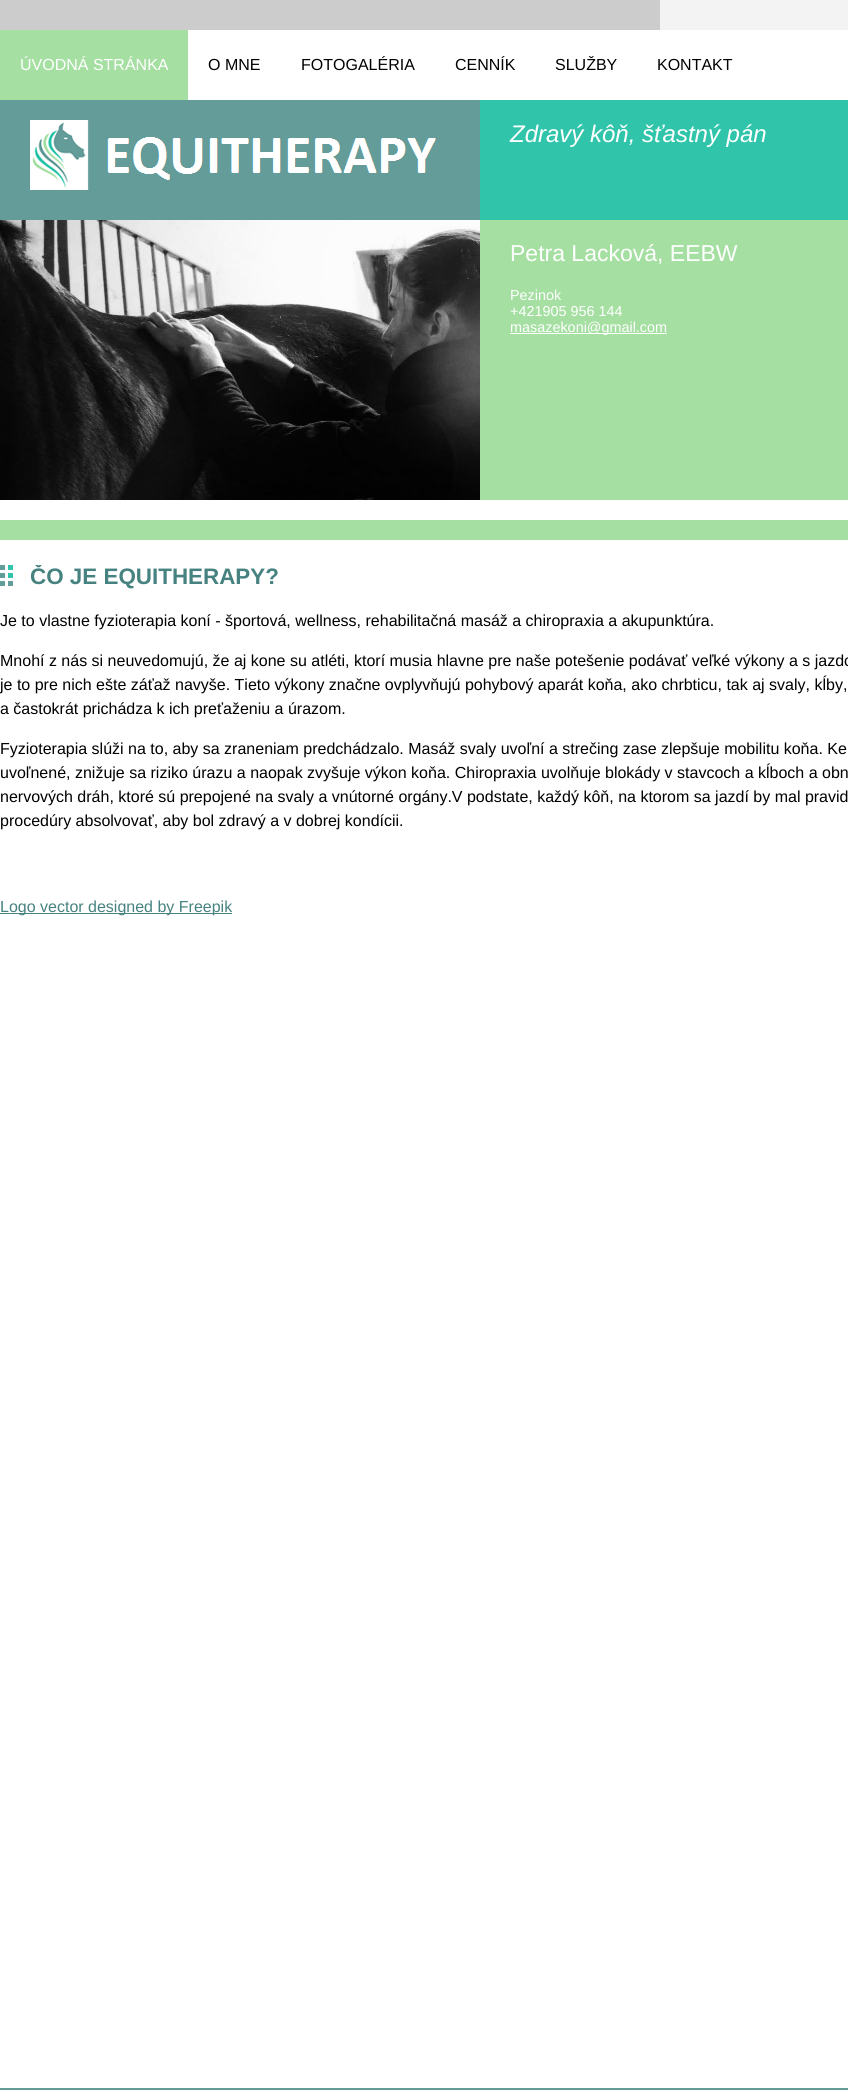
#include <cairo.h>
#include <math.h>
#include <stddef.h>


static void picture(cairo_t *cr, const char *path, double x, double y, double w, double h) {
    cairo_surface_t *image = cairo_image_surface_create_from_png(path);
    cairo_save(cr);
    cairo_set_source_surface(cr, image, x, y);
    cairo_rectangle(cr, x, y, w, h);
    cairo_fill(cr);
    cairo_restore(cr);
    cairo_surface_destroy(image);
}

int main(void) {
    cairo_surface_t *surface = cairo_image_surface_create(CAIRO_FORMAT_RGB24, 848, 2090);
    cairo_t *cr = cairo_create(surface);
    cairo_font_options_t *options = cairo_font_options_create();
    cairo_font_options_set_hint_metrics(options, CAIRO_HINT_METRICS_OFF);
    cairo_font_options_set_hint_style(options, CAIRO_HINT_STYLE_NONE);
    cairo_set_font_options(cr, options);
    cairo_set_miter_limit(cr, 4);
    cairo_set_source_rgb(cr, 1, 1, 1);
    cairo_paint(cr);
    picture(cr, "img1.png", 0, 0, 848, 100);
    cairo_set_source_rgb(cr, 0.953, 0.953, 0.953);
    cairo_rectangle(cr, 660, 0, 188, 30);
    cairo_fill(cr);
    cairo_set_source_rgb(cr, 0.647, 0.875, 0.635);
    cairo_rectangle(cr, 0, 30, 188, 70);
    cairo_fill(cr);
    cairo_select_font_face(cr, "Liberation Sans", CAIRO_FONT_SLANT_NORMAL, CAIRO_FONT_WEIGHT_NORMAL);
    cairo_set_font_size(cr, 16);
    cairo_set_source_rgb(cr, 1, 1, 1);
    cairo_move_to(cr, 20, 70);
    cairo_show_text(cr, "ÚVODNÁ STRÁNKA");
    cairo_set_source_rgb(cr, 0, 0, 0);
    cairo_move_to(cr, 208, 70);
    cairo_show_text(cr, "O MNE");
    cairo_move_to(cr, 301, 70);
    cairo_show_text(cr, "FOTOGALÉRIA");
    cairo_move_to(cr, 455, 70);
    cairo_show_text(cr, "CENNÍK");
    cairo_move_to(cr, 555, 70);
    cairo_show_text(cr, "SLUŽBY");
    cairo_move_to(cr, 657, 70);
    cairo_show_text(cr, "KONTAKT");
    cairo_set_source_rgb(cr, 0.392, 0.612, 0.604);
    cairo_rectangle(cr, 0, 100, 480, 120);
    cairo_fill(cr);
    picture(cr, "img2.png", 30, 120, 406, 70);
    cairo_set_source_rgb(cr, 0.188, 0.773, 0.671);
    cairo_rectangle(cr, 480, 100, 368, 120);
    cairo_fill(cr);
    cairo_select_font_face(cr, "Liberation Sans", CAIRO_FONT_SLANT_ITALIC, CAIRO_FONT_WEIGHT_NORMAL);
    cairo_set_font_size(cr, 24);
    cairo_set_source_rgb(cr, 1, 1, 1);
    cairo_move_to(cr, 510, 142);
    cairo_show_text(cr, "Zdravý kôň, šťastný pán");
    picture(cr, "img3.png", 0, 220, 480, 280);
    cairo_set_source_rgb(cr, 0.647, 0.875, 0.635);
    cairo_rectangle(cr, 480, 220, 368, 280);
    cairo_fill(cr);
    cairo_select_font_face(cr, "Liberation Sans", CAIRO_FONT_SLANT_NORMAL, CAIRO_FONT_WEIGHT_NORMAL);
    cairo_set_font_size(cr, 23);
    cairo_set_source_rgb(cr, 1, 1, 1);
    cairo_move_to(cr, 510, 261);
    cairo_show_text(cr, "Petra Lacková, EEBW");
    cairo_set_font_size(cr, 14.4);
    cairo_move_to(cr, 510, 300);
    cairo_show_text(cr, "Pezinok");
    cairo_move_to(cr, 510, 316);
    cairo_show_text(cr, "+421905 956 144");
    cairo_rectangle(cr, 510, 333, 157, 1);
    cairo_fill(cr);
    cairo_move_to(cr, 510, 332);
    cairo_show_text(cr, "masazekoni@gmail.com");
    cairo_set_source_rgb(cr, 0.647, 0.875, 0.635);
    cairo_rectangle(cr, 0, 520, 848, 20);
    cairo_fill(cr);
    picture(cr, "img4.png", 0, 565, 13, 21);
    cairo_save(cr);
    cairo_rectangle(cr, 0, 565, 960, 284);
    cairo_clip(cr);
    cairo_select_font_face(cr, "Liberation Sans", CAIRO_FONT_SLANT_NORMAL, CAIRO_FONT_WEIGHT_BOLD);
    cairo_set_font_size(cr, 22.4);
    cairo_set_source_rgb(cr, 0.275, 0.51, 0.502);
    cairo_move_to(cr, 30, 584);
    cairo_show_text(cr, "ČO JE EQUITHERAPY?");
    cairo_restore(cr);
    cairo_set_font_size(cr, 16);
    cairo_set_source_rgb(cr, 0, 0, 0);
    cairo_move_to(cr, 0, 626);
    cairo_show_text(cr, "Je to vlastne fyzioterapia koní - športová, wellness, rehabilitačná masáž a chiropraxia a akupunktúra.");
    cairo_move_to(cr, 0, 666);
    cairo_show_text(cr, "Mnohí z nás si neuvedomujú, že aj kone su atléti, ktorí musia hlavne pre naše potešenie podávať veľké výkony a s jazdc");
    cairo_move_to(cr, 0, 690);
    cairo_show_text(cr, "je to pre nich ešte záťaž navyše. Tieto výkony značne ovplyvňujú pohybový aparát koňa, ako chrbticu, tak aj svaly, kĺby,");
    cairo_move_to(cr, 0, 714);
    cairo_show_text(cr, "a častokrát prichádza k ich preťaženiu a úrazom.");
    cairo_move_to(cr, 0, 754);
    cairo_show_text(cr, "Fyzioterapia slúži na to, aby sa zraneniam predchádzalo. Masáž svaly uvoľní a strečing zase zlepšuje mobilitu koňa. Ke");
    cairo_move_to(cr, 0, 778);
    cairo_show_text(cr, "uvoľnené, znižuje sa riziko úrazu a naopak zvyšuje výkon koňa. Chiropraxia uvolňuje blokády v stavcoch a kĺboch a obn");
    cairo_move_to(cr, 0, 802);
    cairo_show_text(cr, "nervových dráh, ktoré sú prepojené na svaly a vnútorné orgány.V podstate, každý kôň, na ktorom sa jazdí by mal pravid");
    cairo_move_to(cr, 0, 826);
    cairo_show_text(cr, "procedúry absolvovať, aby bol zdravý a v dobrej kondícii.");
    cairo_set_source_rgb(cr, 0.275, 0.51, 0.502);
    cairo_rectangle(cr, 0, 913, 232, 1);
    cairo_fill(cr);
    cairo_move_to(cr, 0, 912);
    cairo_show_text(cr, "Logo vector designed by Freepik");
    cairo_set_source_rgb(cr, 0.392, 0.612, 0.604);
    cairo_rectangle(cr, 0, 2088, 848, 2);
    cairo_fill(cr);
    cairo_surface_write_to_png(surface, "page.png");
    cairo_font_options_destroy(options);
    cairo_destroy(cr);
    cairo_surface_destroy(surface);
    return 0;
}
